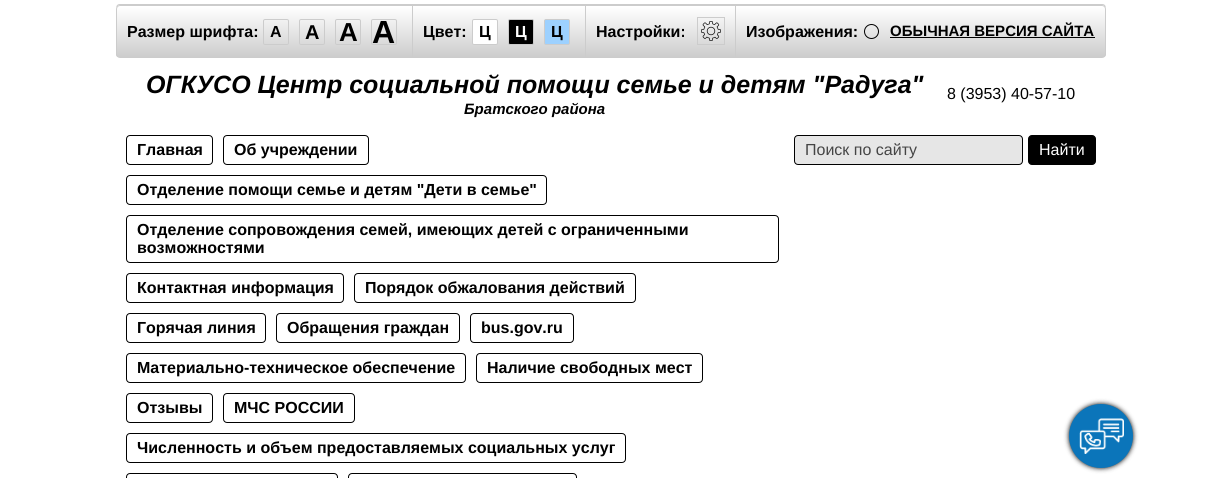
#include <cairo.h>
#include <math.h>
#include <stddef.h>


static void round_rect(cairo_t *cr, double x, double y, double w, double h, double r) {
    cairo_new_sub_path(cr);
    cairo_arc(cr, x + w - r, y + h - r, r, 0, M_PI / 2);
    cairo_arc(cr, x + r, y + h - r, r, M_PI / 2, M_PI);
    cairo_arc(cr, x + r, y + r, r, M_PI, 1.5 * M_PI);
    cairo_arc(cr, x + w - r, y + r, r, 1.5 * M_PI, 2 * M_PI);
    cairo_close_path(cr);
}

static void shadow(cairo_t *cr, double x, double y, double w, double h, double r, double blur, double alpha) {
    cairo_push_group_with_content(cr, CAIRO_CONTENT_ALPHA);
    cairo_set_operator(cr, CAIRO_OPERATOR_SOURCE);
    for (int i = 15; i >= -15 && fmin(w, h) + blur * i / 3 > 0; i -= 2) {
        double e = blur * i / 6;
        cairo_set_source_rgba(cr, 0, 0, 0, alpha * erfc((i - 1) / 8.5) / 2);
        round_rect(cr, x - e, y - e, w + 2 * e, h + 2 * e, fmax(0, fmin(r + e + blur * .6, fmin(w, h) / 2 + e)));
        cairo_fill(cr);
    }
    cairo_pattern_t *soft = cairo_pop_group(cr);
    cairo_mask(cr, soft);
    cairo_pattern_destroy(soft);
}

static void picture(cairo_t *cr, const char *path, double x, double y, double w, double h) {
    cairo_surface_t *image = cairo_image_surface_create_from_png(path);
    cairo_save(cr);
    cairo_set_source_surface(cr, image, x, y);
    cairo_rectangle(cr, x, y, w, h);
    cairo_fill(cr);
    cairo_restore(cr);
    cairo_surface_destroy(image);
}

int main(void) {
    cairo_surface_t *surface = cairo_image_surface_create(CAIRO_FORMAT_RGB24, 1221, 478);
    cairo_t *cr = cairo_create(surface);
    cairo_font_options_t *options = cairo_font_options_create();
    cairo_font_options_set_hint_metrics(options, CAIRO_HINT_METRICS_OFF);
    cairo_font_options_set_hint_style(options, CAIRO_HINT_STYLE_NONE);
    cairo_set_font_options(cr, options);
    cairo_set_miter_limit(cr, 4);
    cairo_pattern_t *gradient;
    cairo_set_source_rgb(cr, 1, 1, 1);
    cairo_paint(cr);
    cairo_set_source_rgb(cr, 0.8, 0.8, 0.8);
    cairo_new_path(cr);
    cairo_move_to(cr, 120, 4);
    cairo_curve_to(cr, 117, 4, 116, 6, 116, 9);
    cairo_curve_to(cr, 116, 7, 118, 5, 120, 5);
    cairo_line_to(cr, 1102, 5);
    cairo_curve_to(cr, 1104, 5, 1106, 7, 1106, 9);
    cairo_curve_to(cr, 1106, 6, 1105, 4, 1102, 4);
    cairo_close_path(cr);
    cairo_fill(cr);
    cairo_save(cr);
    round_rect(cr, 116, 5, 990, 53, 4);
    cairo_clip(cr);
    gradient = cairo_pattern_create_linear(611, 6, 611, 57);
    cairo_pattern_add_color_stop_rgba(gradient, 0, 1, 1, 1, 1);
    cairo_pattern_add_color_stop_rgba(gradient, 1, 0.8, 0.8, 0.8, 1);
    cairo_set_source(cr, gradient);
    cairo_pattern_destroy(gradient);
    cairo_rectangle(cr, 116, 6, 990, 51);
    cairo_fill(cr);
    cairo_restore(cr);
    round_rect(cr, 116.5, 5.5, 989, 52, 3.5);
    cairo_set_line_width(cr, 1);
    cairo_stroke(cr);
    cairo_rectangle(cr, 412, 6, 1, 51);
    cairo_fill(cr);
    cairo_select_font_face(cr, "Liberation Sans", CAIRO_FONT_SLANT_NORMAL, CAIRO_FONT_WEIGHT_BOLD);
    cairo_set_font_size(cr, 16);
    cairo_set_source_rgb(cr, 0, 0, 0);
    cairo_move_to(cr, 127, 37);
    cairo_show_text(cr, "Размер шрифта:");
    round_rect(cr, 263.5, 19.5, 25, 25, 1.5);
    cairo_set_source_rgb(cr, 0.8, 0.8, 0.8);
    cairo_stroke(cr);
    cairo_set_source_rgb(cr, 0, 0, 0);
    cairo_move_to(cr, 270, 37);
    cairo_show_text(cr, "A");
    round_rect(cr, 299.5, 19.5, 25, 25, 1.5);
    cairo_set_source_rgb(cr, 0.8, 0.8, 0.8);
    cairo_stroke(cr);
    cairo_set_font_size(cr, 20);
    cairo_set_source_rgb(cr, 0, 0, 0);
    cairo_move_to(cr, 305, 39);
    cairo_show_text(cr, "A");
    round_rect(cr, 335.5, 19.5, 25, 25, 1.5);
    cairo_set_source_rgb(cr, 0.8, 0.8, 0.8);
    cairo_stroke(cr);
    cairo_set_font_size(cr, 26);
    cairo_set_source_rgb(cr, 0, 0, 0);
    cairo_move_to(cr, 339, 41);
    cairo_show_text(cr, "A");
    round_rect(cr, 371.5, 19.5, 25, 25, 1.5);
    cairo_set_source_rgb(cr, 0.8, 0.8, 0.8);
    cairo_stroke(cr);
    cairo_set_font_size(cr, 32);
    cairo_set_source_rgb(cr, 0, 0, 0);
    cairo_move_to(cr, 372, 43);
    cairo_show_text(cr, "A");
    cairo_set_source_rgb(cr, 0.8, 0.8, 0.8);
    cairo_rectangle(cr, 585, 6, 1, 51);
    cairo_fill(cr);
    cairo_set_font_size(cr, 16);
    cairo_set_source_rgb(cr, 0, 0, 0);
    cairo_move_to(cr, 423, 37);
    cairo_show_text(cr, "Цвет:");
    cairo_set_source_rgb(cr, 1, 1, 1);
    round_rect(cr, 472.5, 19.5, 25, 25, 1.5);
    cairo_fill_preserve(cr);
    cairo_set_source_rgb(cr, 0.8, 0.8, 0.8);
    cairo_stroke(cr);
    cairo_set_source_rgb(cr, 0, 0, 0);
    cairo_move_to(cr, 479, 37);
    cairo_show_text(cr, "Ц");
    round_rect(cr, 508.5, 19.5, 25, 25, 1.5);
    cairo_fill_preserve(cr);
    cairo_set_source_rgb(cr, 0.8, 0.8, 0.8);
    cairo_stroke(cr);
    cairo_set_source_rgb(cr, 1, 1, 1);
    cairo_move_to(cr, 515, 37);
    cairo_show_text(cr, "Ц");
    cairo_set_source_rgb(cr, 0.616, 0.82, 1);
    round_rect(cr, 544.5, 19.5, 25, 25, 1.5);
    cairo_fill_preserve(cr);
    cairo_set_source_rgb(cr, 0.8, 0.8, 0.8);
    cairo_stroke(cr);
    cairo_set_source_rgb(cr, 0, 0, 0);
    cairo_move_to(cr, 551, 37);
    cairo_show_text(cr, "Ц");
    cairo_move_to(cr, 596, 37);
    cairo_show_text(cr, "Настройки:");
    cairo_rectangle(cr, 697.5, 17.5, 27, 27);
    cairo_set_source_rgb(cr, 0.8, 0.8, 0.8);
    cairo_stroke(cr);
    picture(cr, "img1.png", 701, 21, 20, 20);
    cairo_rectangle(cr, 735, 6, 1, 51);
    cairo_fill(cr);
    cairo_set_source_rgb(cr, 0, 0, 0);
    cairo_move_to(cr, 746, 37);
    cairo_show_text(cr, "Изображения:");
    cairo_new_path(cr);
    cairo_arc(cr, 871.5, 31.5, 7, 0, 2 * M_PI);
    cairo_stroke(cr);
    cairo_set_font_size(cr, 15);
    cairo_move_to(cr, 890, 36);
    cairo_show_text(cr, "ОБЫЧНАЯ ВЕРСИЯ САЙТА");
    cairo_rectangle(cr, 890, 37, 205, 1);
    cairo_fill(cr);
    cairo_select_font_face(cr, "Liberation Sans", CAIRO_FONT_SLANT_ITALIC, CAIRO_FONT_WEIGHT_BOLD);
    cairo_set_font_size(cr, 25);
    cairo_move_to(cr, 146, 93);
    cairo_show_text(cr, "ОГКУСО Центр социальной помощи семье и детям \"Радуга\"");
    cairo_set_font_size(cr, 15);
    cairo_move_to(cr, 464, 114);
    cairo_show_text(cr, "Братского района");
    cairo_select_font_face(cr, "Liberation Sans", CAIRO_FONT_SLANT_NORMAL, CAIRO_FONT_WEIGHT_NORMAL);
    cairo_set_font_size(cr, 16);
    cairo_move_to(cr, 947, 99);
    cairo_show_text(cr, "8 (3953) 40-57-10");
    round_rect(cr, 126.5, 135.5, 86, 29, 3.5);
    cairo_stroke(cr);
    cairo_select_font_face(cr, "Liberation Sans", CAIRO_FONT_SLANT_NORMAL, CAIRO_FONT_WEIGHT_BOLD);
    cairo_move_to(cr, 137, 155);
    cairo_show_text(cr, "Главная");
    round_rect(cr, 223.5, 135.5, 145, 29, 3.5);
    cairo_stroke(cr);
    cairo_move_to(cr, 234, 155);
    cairo_show_text(cr, "Об учреждении");
    round_rect(cr, 126.5, 175.5, 420, 29, 3.5);
    cairo_stroke(cr);
    cairo_move_to(cr, 137, 195);
    cairo_show_text(cr, "Отделение помощи семье и детям \"Дети в семье\"");
    round_rect(cr, 126.5, 215.5, 652, 47, 3.5);
    cairo_stroke(cr);
    cairo_move_to(cr, 137, 235);
    cairo_show_text(cr, "Отделение сопровождения семей, имеющих детей с ограниченными");
    cairo_move_to(cr, 137, 253);
    cairo_show_text(cr, "возможностями");
    round_rect(cr, 126.5, 273.5, 217, 29, 3.5);
    cairo_stroke(cr);
    cairo_move_to(cr, 137, 293);
    cairo_show_text(cr, "Контактная информация");
    round_rect(cr, 354.5, 273.5, 281, 29, 3.5);
    cairo_stroke(cr);
    cairo_move_to(cr, 365, 293);
    cairo_show_text(cr, "Порядок обжалования действий");
    round_rect(cr, 126.5, 313.5, 139, 29, 3.5);
    cairo_stroke(cr);
    cairo_move_to(cr, 137, 333);
    cairo_show_text(cr, "Горячая линия");
    round_rect(cr, 276.5, 313.5, 183, 29, 3.5);
    cairo_stroke(cr);
    cairo_move_to(cr, 287, 333);
    cairo_show_text(cr, "Обращения граждан");
    round_rect(cr, 470.5, 313.5, 103, 29, 3.5);
    cairo_stroke(cr);
    cairo_move_to(cr, 481, 333);
    cairo_show_text(cr, "bus.gov.ru");
    round_rect(cr, 126.5, 353.5, 339, 29, 3.5);
    cairo_stroke(cr);
    cairo_move_to(cr, 137, 373);
    cairo_show_text(cr, "Материально-техническое обеспечение");
    round_rect(cr, 476.5, 353.5, 226, 29, 3.5);
    cairo_stroke(cr);
    cairo_move_to(cr, 487, 373);
    cairo_show_text(cr, "Наличие свободных мест");
    round_rect(cr, 126.5, 393.5, 86, 29, 3.5);
    cairo_stroke(cr);
    cairo_move_to(cr, 137, 413);
    cairo_show_text(cr, "Отзывы");
    round_rect(cr, 223.5, 393.5, 131, 29, 3.5);
    cairo_stroke(cr);
    cairo_move_to(cr, 234, 413);
    cairo_show_text(cr, "МЧС РОССИИ");
    round_rect(cr, 126.5, 433.5, 499, 29, 3.5);
    cairo_stroke(cr);
    cairo_move_to(cr, 137, 453);
    cairo_show_text(cr, "Численность и объем предоставляемых социальных услуг");
    round_rect(cr, 126.5, 473.5, 211, 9, 3.5);
    cairo_stroke(cr);
    round_rect(cr, 348.5, 473.5, 228, 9, 3.5);
    cairo_stroke(cr);
    cairo_set_source_rgb(cr, 0.902, 0.902, 0.902);
    round_rect(cr, 794.5, 135.5, 228, 29, 3.5);
    cairo_fill_preserve(cr);
    cairo_set_source_rgb(cr, 0, 0, 0);
    cairo_stroke(cr);
    cairo_select_font_face(cr, "Liberation Sans", CAIRO_FONT_SLANT_NORMAL, CAIRO_FONT_WEIGHT_NORMAL);
    cairo_set_source_rgb(cr, 0.271, 0.271, 0.271);
    cairo_move_to(cr, 805, 155);
    cairo_show_text(cr, "Поиск по сайту");
    cairo_set_source_rgb(cr, 0, 0, 0);
    round_rect(cr, 1028.5, 135.5, 67, 29, 3.5);
    cairo_fill_preserve(cr);
    cairo_stroke(cr);
    cairo_set_source_rgb(cr, 1, 1, 1);
    cairo_move_to(cr, 1039, 155);
    cairo_show_text(cr, "Найти");
    cairo_set_source_rgb(cr, 0, 0, 0);
    shadow(cr, 1069, 404, 64, 64, 32, 2.5, 1);
    cairo_set_source_rgb(cr, 0.043, 0.459, 0.729);
    cairo_arc(cr, 1101, 436, 32, 0, 2 * M_PI);
    cairo_fill(cr);
    picture(cr, "img2.png", 1079, 418, 45, 36);
    cairo_surface_write_to_png(surface, "page.png");
    cairo_font_options_destroy(options);
    cairo_destroy(cr);
    cairo_surface_destroy(surface);
    return 0;
}
